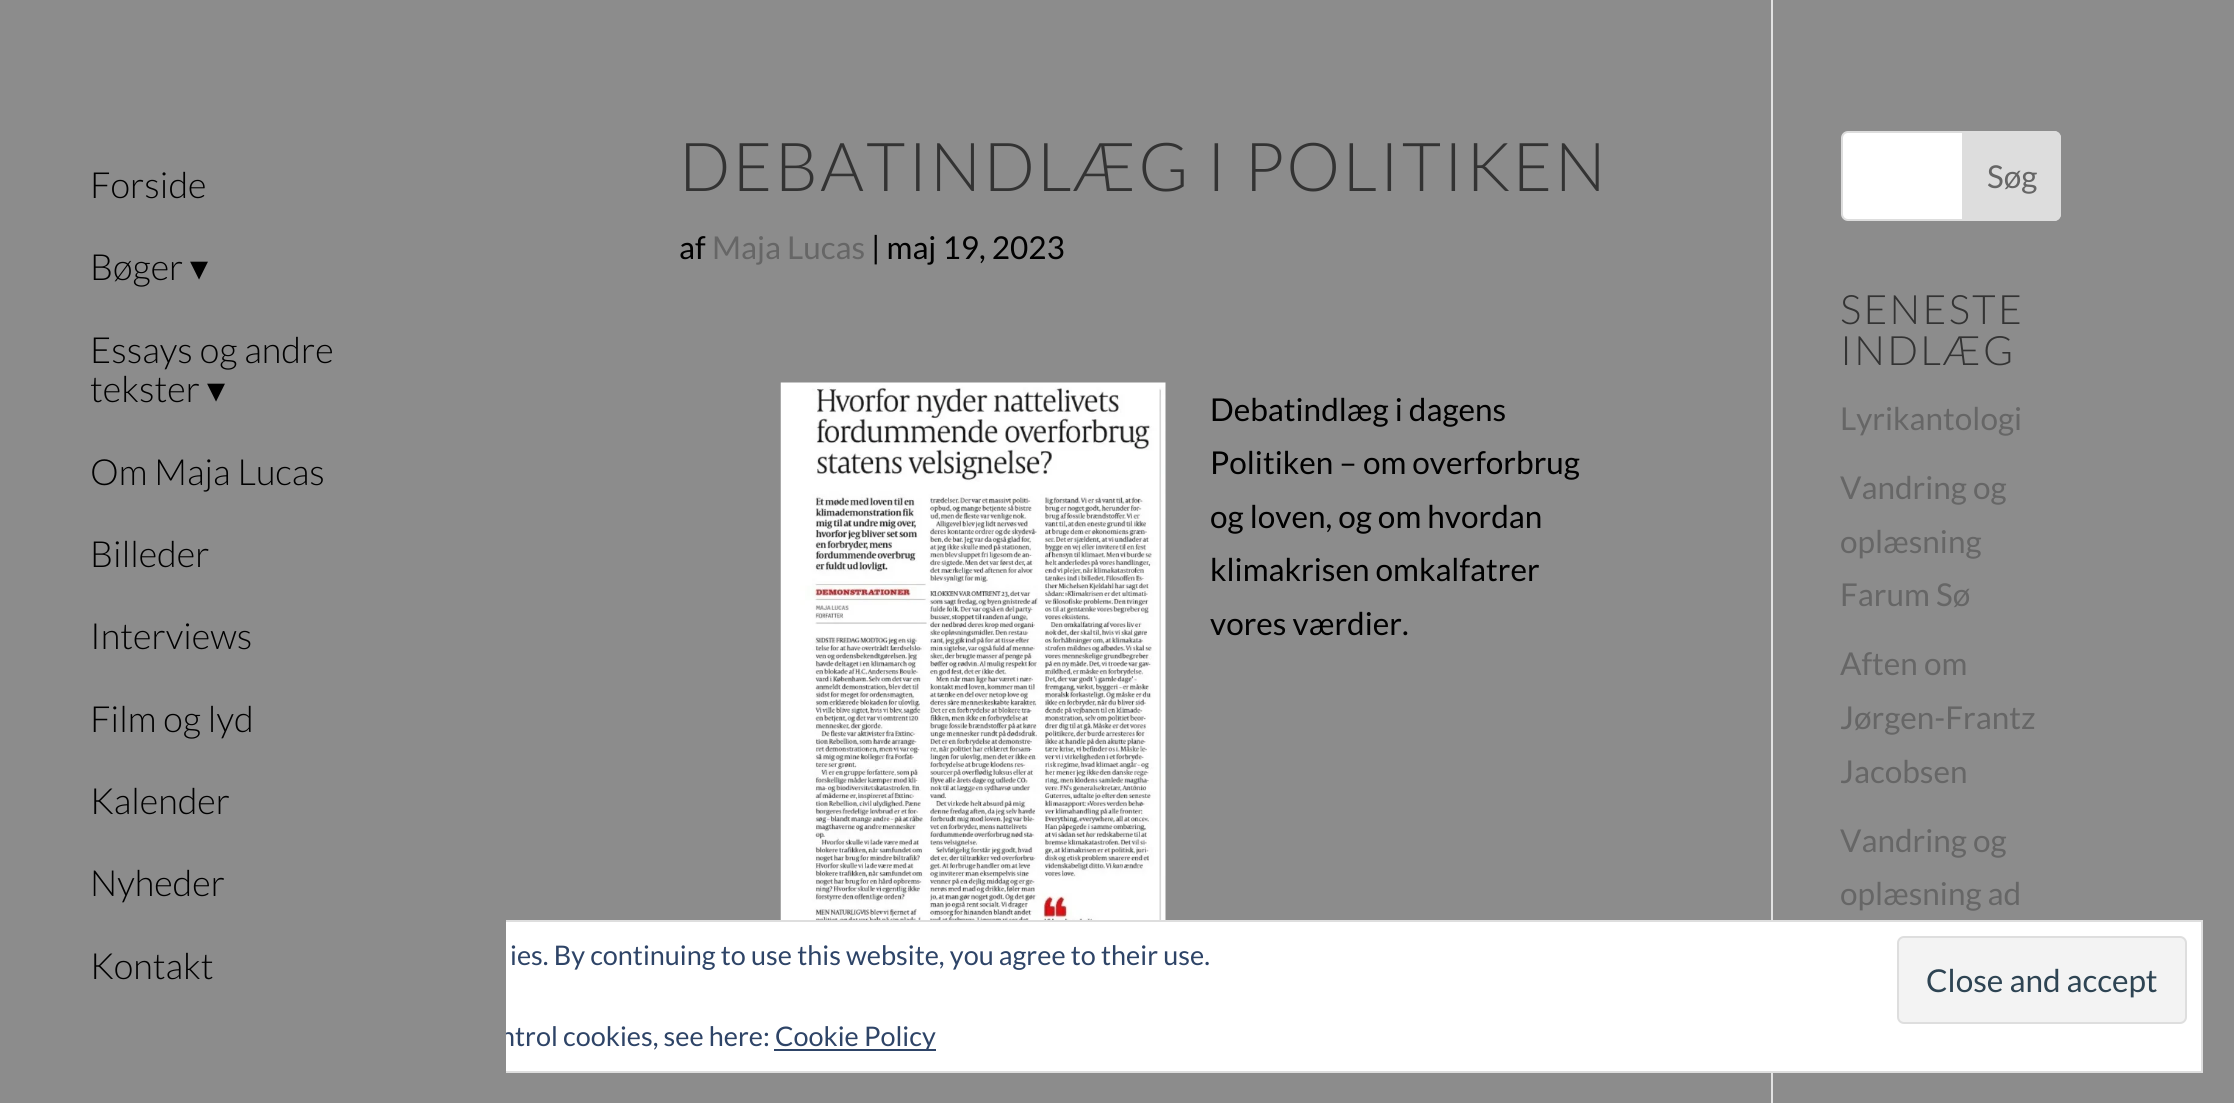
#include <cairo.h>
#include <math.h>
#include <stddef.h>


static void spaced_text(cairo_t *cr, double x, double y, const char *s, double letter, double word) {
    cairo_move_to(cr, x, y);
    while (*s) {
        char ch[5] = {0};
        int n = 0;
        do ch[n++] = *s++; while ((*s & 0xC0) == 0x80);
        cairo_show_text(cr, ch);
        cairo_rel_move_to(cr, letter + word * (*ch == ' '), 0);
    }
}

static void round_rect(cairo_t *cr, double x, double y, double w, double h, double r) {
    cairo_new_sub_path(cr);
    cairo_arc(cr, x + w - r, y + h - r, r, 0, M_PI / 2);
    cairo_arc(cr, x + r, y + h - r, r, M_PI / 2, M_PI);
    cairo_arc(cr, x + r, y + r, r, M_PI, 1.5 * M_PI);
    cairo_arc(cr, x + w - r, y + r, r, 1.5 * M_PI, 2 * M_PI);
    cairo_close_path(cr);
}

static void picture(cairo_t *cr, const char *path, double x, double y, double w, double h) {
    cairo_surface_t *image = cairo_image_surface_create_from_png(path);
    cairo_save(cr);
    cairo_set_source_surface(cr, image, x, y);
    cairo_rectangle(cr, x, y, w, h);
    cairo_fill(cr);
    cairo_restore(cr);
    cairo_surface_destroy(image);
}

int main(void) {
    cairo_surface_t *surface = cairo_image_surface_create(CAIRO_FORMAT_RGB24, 2234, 1103);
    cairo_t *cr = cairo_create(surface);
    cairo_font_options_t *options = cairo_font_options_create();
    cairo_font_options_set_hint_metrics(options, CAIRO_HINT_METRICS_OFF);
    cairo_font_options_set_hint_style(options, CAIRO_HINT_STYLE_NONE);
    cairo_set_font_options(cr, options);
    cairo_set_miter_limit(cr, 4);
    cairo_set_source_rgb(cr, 0.549, 0.549, 0.549);
    cairo_paint(cr);
    cairo_set_source_rgb(cr, 0.886, 0.886, 0.886);
    cairo_rectangle(cr, 1771, 0, 2, 1103);
    cairo_fill(cr);
    cairo_set_source_rgb(cr, 1, 1, 1);
    cairo_rectangle(cr, 506, 922, 1695, 149);
    cairo_fill(cr);
    cairo_rectangle(cr, 33, 921, 2169, 151);
    cairo_set_source_rgb(cr, 0.871, 0.871, 0.871);
    cairo_stroke(cr);
    cairo_select_font_face(cr, "Lato", CAIRO_FONT_SLANT_NORMAL, CAIRO_FONT_WEIGHT_NORMAL);
    cairo_set_font_size(cr, 27);
    cairo_set_source_rgb(cr, 0.18, 0.267, 0.404);
    cairo_move_to(cr, 500, 1046);
    cairo_show_text(cr, "ntrol cookies, see here:");
    cairo_set_source_rgb(cr, 0.549, 0.549, 0.549);
    cairo_rectangle(cr, 32, 920, 474, 153);
    cairo_fill(cr);
    cairo_select_font_face(cr, "Lato Light", CAIRO_FONT_SLANT_NORMAL, CAIRO_FONT_WEIGHT_NORMAL);
    cairo_set_font_size(cr, 36);
    cairo_set_source_rgb(cr, 0, 0, 0);
    cairo_move_to(cr, 90, 198);
    cairo_show_text(cr, "Forside");
    cairo_move_to(cr, 90, 280);
    cairo_show_text(cr, "Bøger");
    cairo_select_font_face(cr, "DejaVu Sans", CAIRO_FONT_SLANT_NORMAL, CAIRO_FONT_WEIGHT_NORMAL);
    cairo_move_to(cr, 190, 280);
    cairo_show_text(cr, "▾");
    cairo_select_font_face(cr, "Lato Light", CAIRO_FONT_SLANT_NORMAL, CAIRO_FONT_WEIGHT_NORMAL);
    cairo_move_to(cr, 90, 363);
    cairo_show_text(cr, "Essays og andre");
    cairo_move_to(cr, 90, 402);
    cairo_show_text(cr, "tekster");
    cairo_select_font_face(cr, "DejaVu Sans", CAIRO_FONT_SLANT_NORMAL, CAIRO_FONT_WEIGHT_NORMAL);
    cairo_move_to(cr, 207, 402);
    cairo_show_text(cr, "▾");
    cairo_select_font_face(cr, "Lato Light", CAIRO_FONT_SLANT_NORMAL, CAIRO_FONT_WEIGHT_NORMAL);
    cairo_move_to(cr, 90, 485);
    cairo_show_text(cr, "Om Maja Lucas");
    cairo_move_to(cr, 90, 567);
    cairo_show_text(cr, "Billeder");
    cairo_move_to(cr, 90, 649);
    cairo_show_text(cr, "Interviews");
    cairo_move_to(cr, 90, 732);
    cairo_show_text(cr, "Film og lyd");
    cairo_move_to(cr, 90, 814);
    cairo_show_text(cr, "Kalender");
    cairo_move_to(cr, 90, 896);
    cairo_show_text(cr, "Nyheder");
    cairo_move_to(cr, 90, 979);
    cairo_show_text(cr, "Kontakt");
    cairo_set_font_size(cr, 67.5);
    cairo_set_source_rgb(cr, 0.2, 0.2, 0.2);
    spaced_text(cr, 679, 191, "DEBATINDLÆG I POLITIKEN", 2.25, 0);
    cairo_select_font_face(cr, "Lato", CAIRO_FONT_SLANT_NORMAL, CAIRO_FONT_WEIGHT_NORMAL);
    cairo_set_font_size(cr, 31.5);
    cairo_set_source_rgb(cr, 0, 0, 0);
    cairo_move_to(cr, 679, 259);
    cairo_show_text(cr, "af");
    cairo_set_source_rgb(cr, 0.4, 0.4, 0.4);
    cairo_move_to(cr, 712, 259);
    cairo_show_text(cr, "Maja Lucas");
    cairo_set_source_rgb(cr, 0, 0, 0);
    cairo_move_to(cr, 871, 259);
    cairo_show_text(cr, "| maj 19, 2023");
    picture(cr, "img1.png", 780, 382, 386, 538);
    cairo_move_to(cr, 1210, 421);
    cairo_show_text(cr, "Debatindlæg i dagens");
    cairo_move_to(cr, 1210, 474);
    cairo_show_text(cr, "Politiken – om overforbrug");
    cairo_move_to(cr, 1210, 528);
    cairo_show_text(cr, "og loven, og om hvordan");
    cairo_move_to(cr, 1210, 581);
    cairo_show_text(cr, "klimakrisen omkalfatrer");
    cairo_move_to(cr, 1210, 635);
    cairo_show_text(cr, "vores værdier.");
    cairo_set_source_rgb(cr, 1, 1, 1);
    round_rect(cr, 1842, 132, 218, 88, 6);
    cairo_fill_preserve(cr);
    cairo_set_source_rgb(cr, 0.867, 0.867, 0.867);
    cairo_stroke(cr);
    cairo_new_path(cr);
    cairo_move_to(cr, 1963, 132);
    cairo_line_to(cr, 2054, 132);
    cairo_curve_to(cr, 2057.5, 132, 2060, 134.5, 2060, 138);
    cairo_line_to(cr, 2060, 214);
    cairo_curve_to(cr, 2060, 217.5, 2057.5, 220, 2054, 220);
    cairo_line_to(cr, 1963, 220);
    cairo_close_path(cr);
    cairo_fill_preserve(cr);
    cairo_stroke(cr);
    cairo_set_source_rgb(cr, 0.4, 0.4, 0.4);
    cairo_move_to(cr, 1987, 188);
    cairo_show_text(cr, "Søg");
    cairo_select_font_face(cr, "Lato Light", CAIRO_FONT_SLANT_NORMAL, CAIRO_FONT_WEIGHT_NORMAL);
    cairo_set_font_size(cr, 40.5);
    cairo_set_source_rgb(cr, 0.2, 0.2, 0.2);
    spaced_text(cr, 1840, 324, "SENESTE", 2.25, 0);
    spaced_text(cr, 1840, 365, "INDLÆG", 2.25, 0);
    cairo_select_font_face(cr, "Lato", CAIRO_FONT_SLANT_NORMAL, CAIRO_FONT_WEIGHT_NORMAL);
    cairo_set_font_size(cr, 31.5);
    cairo_set_source_rgb(cr, 0.4, 0.4, 0.4);
    cairo_move_to(cr, 1840, 430);
    cairo_show_text(cr, "Lyrikantologi");
    cairo_move_to(cr, 1840, 499);
    cairo_show_text(cr, "Vandring og");
    cairo_move_to(cr, 1840, 553);
    cairo_show_text(cr, "oplæsning");
    cairo_move_to(cr, 1840, 606);
    cairo_show_text(cr, "Farum Sø");
    cairo_move_to(cr, 1840, 675);
    cairo_show_text(cr, "Aften om");
    cairo_move_to(cr, 1840, 729);
    cairo_show_text(cr, "Jørgen-Frantz");
    cairo_move_to(cr, 1840, 783);
    cairo_show_text(cr, "Jacobsen");
    cairo_move_to(cr, 1840, 852);
    cairo_show_text(cr, "Vandring og");
    cairo_move_to(cr, 1840, 905);
    cairo_show_text(cr, "oplæsning ad");
    cairo_set_font_size(cr, 27);
    cairo_set_source_rgb(cr, 0.18, 0.267, 0.404);
    cairo_move_to(cr, 510, 965);
    cairo_show_text(cr, "ies. By continuing to use this website, you agree to their use.");
    cairo_set_source_rgb(cr, 0.953, 0.953, 0.953);
    round_rect(cr, 1898, 937, 288, 86, 6);
    cairo_fill_preserve(cr);
    cairo_set_source_rgb(cr, 0.871, 0.871, 0.871);
    cairo_stroke(cr);
    cairo_set_font_size(cr, 31.5);
    cairo_set_source_rgb(cr, 0.18, 0.267, 0.325);
    cairo_move_to(cr, 1926, 992);
    cairo_show_text(cr, "Close and accept");
    cairo_set_source_rgb(cr, 0.18, 0.267, 0.404);
    cairo_rectangle(cr, 774, 1049, 162, 2);
    cairo_fill(cr);
    cairo_set_font_size(cr, 27);
    cairo_move_to(cr, 775, 1046);
    cairo_show_text(cr, "Cookie Policy");
    cairo_surface_write_to_png(surface, "page.png");
    cairo_font_options_destroy(options);
    cairo_destroy(cr);
    cairo_surface_destroy(surface);
    return 0;
}
